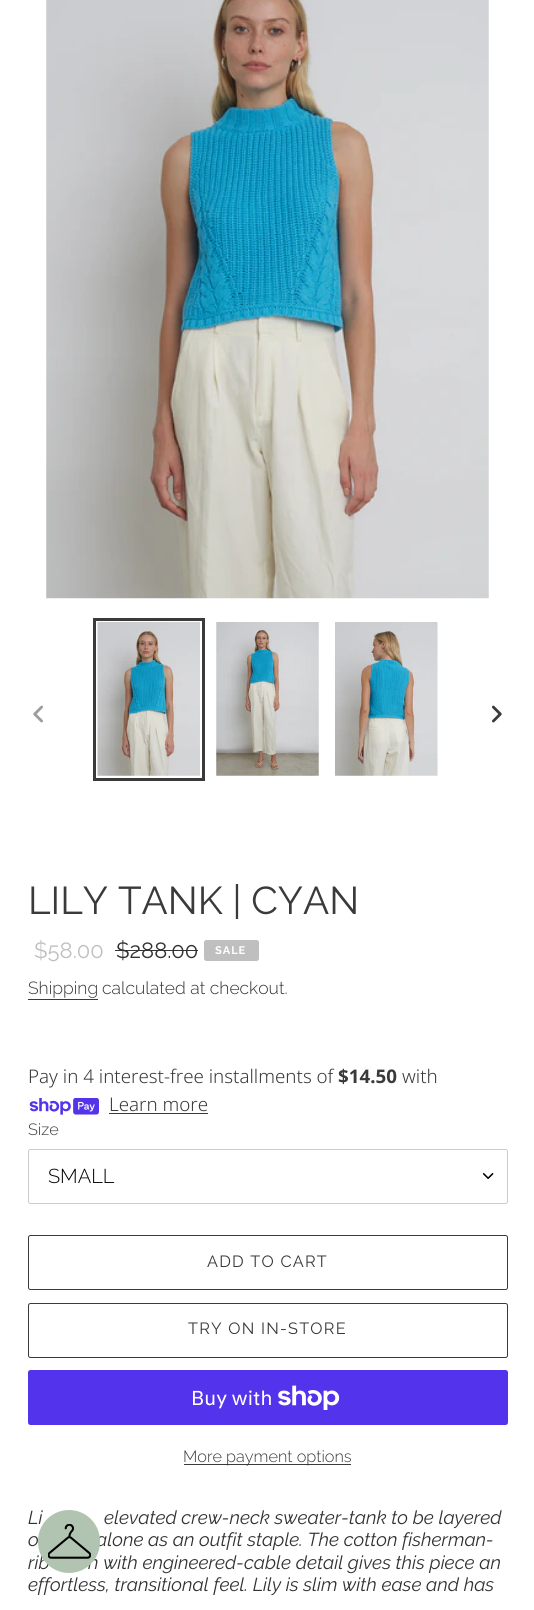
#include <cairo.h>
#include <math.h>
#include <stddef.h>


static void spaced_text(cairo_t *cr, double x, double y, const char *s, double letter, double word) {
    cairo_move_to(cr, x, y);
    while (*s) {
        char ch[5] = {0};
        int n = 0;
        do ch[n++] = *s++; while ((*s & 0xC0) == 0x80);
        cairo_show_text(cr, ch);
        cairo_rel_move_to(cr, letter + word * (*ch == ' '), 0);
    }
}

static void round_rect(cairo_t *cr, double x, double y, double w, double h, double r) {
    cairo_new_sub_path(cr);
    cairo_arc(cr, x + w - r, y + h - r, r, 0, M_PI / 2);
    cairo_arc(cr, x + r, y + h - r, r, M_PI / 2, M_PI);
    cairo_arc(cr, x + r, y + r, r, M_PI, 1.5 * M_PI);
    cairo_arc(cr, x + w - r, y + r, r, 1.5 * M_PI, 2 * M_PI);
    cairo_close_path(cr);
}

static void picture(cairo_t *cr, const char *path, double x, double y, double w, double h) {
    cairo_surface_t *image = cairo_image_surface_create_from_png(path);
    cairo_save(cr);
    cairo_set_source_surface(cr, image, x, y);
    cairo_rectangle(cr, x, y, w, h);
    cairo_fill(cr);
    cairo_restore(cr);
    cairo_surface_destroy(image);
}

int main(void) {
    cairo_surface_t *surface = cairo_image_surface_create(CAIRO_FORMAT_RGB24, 534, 1610);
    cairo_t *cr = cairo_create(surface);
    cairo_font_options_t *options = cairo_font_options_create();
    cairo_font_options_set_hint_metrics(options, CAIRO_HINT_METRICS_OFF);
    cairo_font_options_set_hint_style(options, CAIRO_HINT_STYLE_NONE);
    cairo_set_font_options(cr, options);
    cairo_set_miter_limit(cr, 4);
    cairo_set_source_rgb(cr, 1, 1, 1);
    cairo_paint(cr);
    picture(cr, "img1.png", 46, 0, 443, 599);
    picture(cr, "img2.png", 33, 705, 10, 18);
    cairo_rectangle(cr, 94.5, 619.5, 109, 160);
    cairo_set_source_rgb(cr, 0.227, 0.227, 0.227);
    cairo_set_line_width(cr, 3);
    cairo_stroke(cr);
    picture(cr, "img3.png", 97, 622, 103, 154);
    picture(cr, "img4.png", 216, 622, 103, 154);
    picture(cr, "img5.png", 335, 622, 103, 154);
    picture(cr, "img6.png", 492, 705, 10, 18);
    cairo_select_font_face(cr, "Raleway", CAIRO_FONT_SLANT_NORMAL, CAIRO_FONT_WEIGHT_NORMAL);
    cairo_set_font_size(cr, 38.75);
    cairo_move_to(cr, 28, 914);
    cairo_show_text(cr, "LILY TANK | CYAN");
    cairo_set_font_size(cr, 22);
    cairo_set_source_rgb(cr, 0.749, 0.749, 0.749);
    cairo_move_to(cr, 34, 958);
    cairo_show_text(cr, "$58.00");
    cairo_set_source_rgb(cr, 0.2, 0.196, 0.196);
    cairo_move_to(cr, 116, 958);
    cairo_show_text(cr, "$288.00");
    cairo_rectangle(cr, 115, 950, 83, 1);
    cairo_fill(cr);
    cairo_set_source_rgb(cr, 0.749, 0.749, 0.749);
    round_rect(cr, 204.5, 940.5, 54, 20, 2);
    cairo_fill_preserve(cr);
    cairo_set_line_width(cr, 1);
    cairo_stroke(cr);
    cairo_select_font_face(cr, "Raleway", CAIRO_FONT_SLANT_NORMAL, CAIRO_FONT_WEIGHT_BOLD);
    cairo_set_font_size(cr, 11);
    cairo_set_source_rgb(cr, 1, 1, 1);
    spaced_text(cr, 215, 954, "SALE", 1, 0);
    cairo_select_font_face(cr, "Raleway Light", CAIRO_FONT_SLANT_NORMAL, CAIRO_FONT_WEIGHT_NORMAL);
    cairo_set_font_size(cr, 17.5);
    cairo_set_source_rgb(cr, 0.227, 0.227, 0.227);
    cairo_move_to(cr, 28, 994);
    cairo_show_text(cr, "Shipping");
    cairo_rectangle(cr, 28, 999, 70, 1);
    cairo_fill(cr);
    cairo_set_source_rgb(cr, 0.2, 0.196, 0.196);
    cairo_move_to(cr, 102, 994);
    cairo_show_text(cr, "calculated at checkout.");
    cairo_select_font_face(cr, "Noto Sans Light", CAIRO_FONT_SLANT_NORMAL, CAIRO_FONT_WEIGHT_NORMAL);
    cairo_set_font_size(cr, 18.75);
    cairo_set_source_rgb(cr, 0.227, 0.227, 0.227);
    cairo_move_to(cr, 28, 1083);
    cairo_show_text(cr, "Pay in 4 interest-free installments of");
    cairo_select_font_face(cr, "Noto Sans", CAIRO_FONT_SLANT_NORMAL, CAIRO_FONT_WEIGHT_BOLD);
    cairo_move_to(cr, 338, 1083);
    cairo_show_text(cr, "$14.50");
    cairo_select_font_face(cr, "Noto Sans Light", CAIRO_FONT_SLANT_NORMAL, CAIRO_FONT_WEIGHT_NORMAL);
    cairo_move_to(cr, 402, 1083);
    cairo_show_text(cr, "with");
    picture(cr, "img7.png", 29, 1098, 70, 17);
    cairo_move_to(cr, 109, 1111);
    cairo_show_text(cr, "Learn more");
    cairo_rectangle(cr, 109, 1113, 99, 1);
    cairo_fill(cr);
    cairo_select_font_face(cr, "Raleway Light", CAIRO_FONT_SLANT_NORMAL, CAIRO_FONT_WEIGHT_NORMAL);
    cairo_set_font_size(cr, 16.25);
    cairo_move_to(cr, 28, 1135);
    cairo_show_text(cr, "Size");
    picture(cr, "img8.png", 483, 1173, 11, 6);
    round_rect(cr, 28.5, 1149.5, 479, 54, 2);
    cairo_set_source_rgb(cr, 0.8, 0.8, 0.8);
    cairo_stroke(cr);
    cairo_set_font_size(cr, 20);
    cairo_set_source_rgb(cr, 0, 0, 0);
    cairo_move_to(cr, 48, 1183);
    cairo_show_text(cr, "SMALL");
    round_rect(cr, 28.5, 1235.5, 479, 54, 2);
    cairo_set_source_rgb(cr, 0.227, 0.227, 0.227);
    cairo_stroke(cr);
    cairo_select_font_face(cr, "Raleway", CAIRO_FONT_SLANT_NORMAL, CAIRO_FONT_WEIGHT_NORMAL);
    cairo_set_font_size(cr, 16.25);
    spaced_text(cr, 207, 1267, "ADD TO CART", 1.25, 0);
    round_rect(cr, 28.5, 1303.5, 479, 54, 2);
    cairo_stroke(cr);
    spaced_text(cr, 188, 1334, "TRY ON IN-STORE", 1.25, 0);
    cairo_set_source_rgb(cr, 0.329, 0.2, 0.922);
    round_rect(cr, 28, 1370, 480, 55, 2.5);
    cairo_fill(cr);
    cairo_select_font_face(cr, "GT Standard", CAIRO_FONT_SLANT_NORMAL, CAIRO_FONT_WEIGHT_NORMAL);
    cairo_set_font_size(cr, 20);
    cairo_set_source_rgb(cr, 1, 1, 1);
    cairo_move_to(cr, 191, 1405);
    cairo_show_text(cr, "Buy with");
    picture(cr, "img9.png", 278, 1385, 62, 25);
    cairo_set_source_rgb(cr, 0.227, 0.227, 0.227);
    cairo_rectangle(cr, 184, 1464, 167, 1);
    cairo_fill(cr);
    cairo_select_font_face(cr, "Raleway Light", CAIRO_FONT_SLANT_NORMAL, CAIRO_FONT_WEIGHT_NORMAL);
    cairo_set_font_size(cr, 16.25);
    cairo_move_to(cr, 183, 1462);
    cairo_show_text(cr, "More payment options");
    cairo_select_font_face(cr, "Raleway", CAIRO_FONT_SLANT_ITALIC, CAIRO_FONT_WEIGHT_NORMAL);
    cairo_set_font_size(cr, 18.75);
    cairo_set_source_rgb(cr, 0.2, 0.196, 0.196);
    cairo_move_to(cr, 28, 1524);
    cairo_show_text(cr, "Li");
    cairo_move_to(cr, 104, 1524);
    cairo_show_text(cr, "elevated crew-neck sweater-tank to be layered");
    cairo_move_to(cr, 28, 1546);
    cairo_show_text(cr, "o");
    cairo_move_to(cr, 96, 1546);
    cairo_show_text(cr, "alone as an outfit staple. The cotton fisherman-");
    cairo_move_to(cr, 28, 1569);
    cairo_show_text(cr, "rib");
    cairo_move_to(cr, 88, 1569);
    cairo_show_text(cr, "h with engineered-cable detail gives this piece an");
    cairo_move_to(cr, 28, 1591);
    cairo_show_text(cr, "effortless, transitional feel. Lily is slim with ease and has");
    cairo_set_source_rgb(cr, 0.69, 0.769, 0.694);
    round_rect(cr, 38, 1510, 62, 63, 31);
    cairo_fill(cr);
    picture(cr, "img10.png", 48, 1524, 43, 35);
    cairo_surface_write_to_png(surface, "page.png");
    cairo_font_options_destroy(options);
    cairo_destroy(cr);
    cairo_surface_destroy(surface);
    return 0;
}
